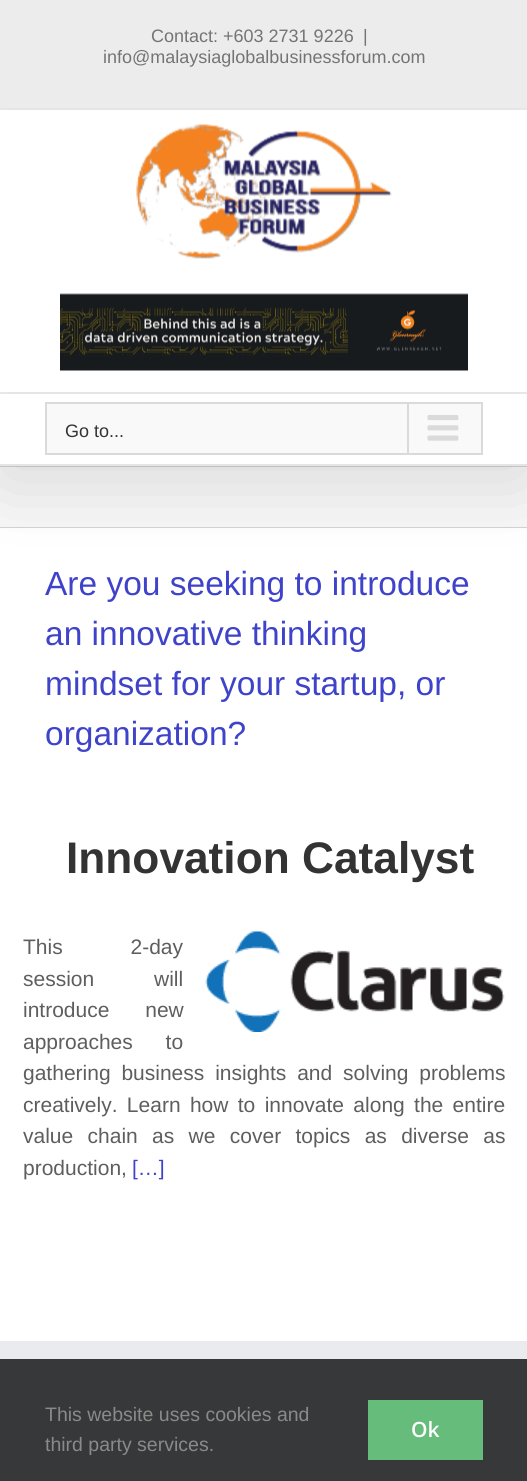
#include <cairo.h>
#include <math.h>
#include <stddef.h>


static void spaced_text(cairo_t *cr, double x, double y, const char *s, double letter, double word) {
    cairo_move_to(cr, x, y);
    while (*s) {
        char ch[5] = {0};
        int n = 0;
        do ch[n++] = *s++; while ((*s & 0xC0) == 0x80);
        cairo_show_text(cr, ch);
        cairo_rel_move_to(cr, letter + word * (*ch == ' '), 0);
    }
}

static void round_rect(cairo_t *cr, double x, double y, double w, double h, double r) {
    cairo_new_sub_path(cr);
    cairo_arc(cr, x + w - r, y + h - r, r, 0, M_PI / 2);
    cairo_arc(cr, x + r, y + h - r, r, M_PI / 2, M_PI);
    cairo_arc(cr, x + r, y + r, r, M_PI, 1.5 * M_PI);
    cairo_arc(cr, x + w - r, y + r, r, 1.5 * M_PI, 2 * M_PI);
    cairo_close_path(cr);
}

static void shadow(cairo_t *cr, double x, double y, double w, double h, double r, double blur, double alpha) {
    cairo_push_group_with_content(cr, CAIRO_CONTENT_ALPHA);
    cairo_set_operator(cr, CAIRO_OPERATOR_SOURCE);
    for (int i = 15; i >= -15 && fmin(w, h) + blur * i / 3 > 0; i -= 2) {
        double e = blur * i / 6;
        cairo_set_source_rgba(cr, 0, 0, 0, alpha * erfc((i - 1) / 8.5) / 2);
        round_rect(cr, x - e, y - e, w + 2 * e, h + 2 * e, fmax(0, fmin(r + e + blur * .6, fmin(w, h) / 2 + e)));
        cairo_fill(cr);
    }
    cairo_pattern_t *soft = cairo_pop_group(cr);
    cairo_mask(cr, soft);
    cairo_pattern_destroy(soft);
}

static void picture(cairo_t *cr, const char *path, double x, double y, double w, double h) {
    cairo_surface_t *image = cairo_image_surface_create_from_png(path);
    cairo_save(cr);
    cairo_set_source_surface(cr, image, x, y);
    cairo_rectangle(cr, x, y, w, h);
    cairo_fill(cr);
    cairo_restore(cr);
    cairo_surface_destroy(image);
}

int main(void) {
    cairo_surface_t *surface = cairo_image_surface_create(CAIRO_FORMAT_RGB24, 527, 1481);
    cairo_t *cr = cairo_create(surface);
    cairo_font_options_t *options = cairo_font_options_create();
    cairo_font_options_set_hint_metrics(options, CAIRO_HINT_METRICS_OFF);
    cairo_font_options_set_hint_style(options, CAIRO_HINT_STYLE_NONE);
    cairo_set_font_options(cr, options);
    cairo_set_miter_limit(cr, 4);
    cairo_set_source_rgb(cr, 0.965, 0.965, 0.965);
    cairo_paint(cr);
    cairo_set_source_rgb(cr, 0.824, 0.827, 0.831);
    cairo_rectangle(cr, 0, 466, 527, 1);
    cairo_fill(cr);
    cairo_rectangle(cr, 0, 527, 527, 1);
    cairo_fill(cr);
    cairo_set_source_rgb(cr, 1, 1, 1);
    cairo_rectangle(cr, 0, 528, 527, 813);
    cairo_fill(cr);
    cairo_set_source_rgb(cr, 0, 0, 0);
    shadow(cr, 3, 18, 522, 459, 0, 37.5, 0.14);
    cairo_set_source_rgb(cr, 0.925, 0.925, 0.925);
    cairo_rectangle(cr, 0, 0, 527, 108);
    cairo_fill(cr);
    cairo_set_source_rgb(cr, 0.898, 0.898, 0.898);
    cairo_rectangle(cr, 10, 108, 508, 2);
    cairo_fill(cr);
    cairo_select_font_face(cr, "Liberation Sans", CAIRO_FONT_SLANT_NORMAL, CAIRO_FONT_WEIGHT_NORMAL);
    cairo_set_font_size(cr, 18);
    cairo_set_source_rgb(cr, 0.455, 0.455, 0.455);
    cairo_move_to(cr, 151, 42);
    cairo_show_text(cr, "Contact: +603 2731 9226");
    cairo_move_to(cr, 363, 42);
    cairo_show_text(cr, "|");
    cairo_move_to(cr, 103, 63);
    cairo_show_text(cr, "info@malaysiaglobalbusinessforum.com");
    cairo_set_source_rgb(cr, 1, 1, 1);
    cairo_rectangle(cr, 0, 110, 527, 282);
    cairo_fill(cr);
    cairo_set_source_rgb(cr, 0.898, 0.898, 0.898);
    cairo_rectangle(cr, 10, 392, 508, 2);
    cairo_fill(cr);
    picture(cr, "img1.png", 136, 124, 256, 135);
    picture(cr, "img2.png", 60, 293, 408, 78);
    cairo_set_source_rgb(cr, 1, 1, 1);
    cairo_rectangle(cr, 0, 394, 527, 70);
    cairo_fill(cr);
    cairo_set_source_rgb(cr, 0.898, 0.898, 0.898);
    cairo_rectangle(cr, 0, 464, 527, 2);
    cairo_fill(cr);
    cairo_set_source_rgb(cr, 0.976, 0.976, 0.976);
    cairo_rectangle(cr, 46, 403, 436, 51);
    cairo_fill_preserve(cr);
    cairo_set_source_rgb(cr, 0.855, 0.855, 0.855);
    cairo_stroke(cr);
    cairo_set_source_rgb(cr, 0.2, 0.2, 0.2);
    cairo_move_to(cr, 65, 437);
    cairo_show_text(cr, "Go to...");
    cairo_set_source_rgb(cr, 0.855, 0.855, 0.855);
    cairo_rectangle(cr, 407, 404, 2, 49);
    cairo_fill(cr);
    picture(cr, "img3.png", 427, 415, 32, 26);
    cairo_set_font_size(cr, 33.5);
    cairo_set_source_rgb(cr, 0.243, 0.263, 0.788);
    cairo_move_to(cr, 45, 595);
    cairo_show_text(cr, "Are you seeking to introduce");
    cairo_move_to(cr, 45, 645);
    cairo_show_text(cr, "an innovative thinking");
    cairo_move_to(cr, 45, 695);
    cairo_show_text(cr, "mindset for your startup, or");
    cairo_move_to(cr, 45, 745);
    cairo_show_text(cr, "organization?");
    cairo_select_font_face(cr, "Liberation Sans", CAIRO_FONT_SLANT_NORMAL, CAIRO_FONT_WEIGHT_BOLD);
    cairo_set_font_size(cr, 44.25);
    cairo_set_source_rgb(cr, 0.2, 0.2, 0.2);
    cairo_move_to(cr, 66, 873);
    cairo_show_text(cr, "Innovation Catalyst");
    picture(cr, "img4.png", 205, 931, 300, 101);
    cairo_select_font_face(cr, "Liberation Sans", CAIRO_FONT_SLANT_NORMAL, CAIRO_FONT_WEIGHT_NORMAL);
    cairo_set_font_size(cr, 21);
    cairo_set_source_rgb(cr, 0.369, 0.369, 0.369);
    spaced_text(cr, 23, 954, "This 2-day", 0, 62);
    spaced_text(cr, 23, 986, "session will", 0, 54);
    spaced_text(cr, 23, 1017, "introduce new", 0, 30);
    spaced_text(cr, 23, 1049, "approaches to", 0, 27);
    spaced_text(cr, 23, 1080, "gathering business insights and solving problems", 0, 5);
    spaced_text(cr, 23, 1112, "creatively. Learn how to innovate along the entire", 0, 3.5);
    spaced_text(cr, 23, 1143, "value chain as we cover topics as diverse as", 0, 8.5);
    cairo_move_to(cr, 23, 1175);
    cairo_show_text(cr, "production,");
    cairo_set_source_rgb(cr, 0.243, 0.263, 0.788);
    cairo_move_to(cr, 132, 1175);
    cairo_show_text(cr, "[…]");
    cairo_set_source_rgb(cr, 0.212, 0.22, 0.224);
    cairo_rectangle(cr, 0, 1359, 527, 122);
    cairo_fill(cr);
    cairo_set_source_rgb(cr, 0.914, 0.918, 0.933);
    cairo_rectangle(cr, 0, 1341, 527, 18);
    cairo_fill(cr);
    cairo_set_font_size(cr, 19.5);
    cairo_set_source_rgb(cr, 0.549, 0.537, 0.537);
    cairo_move_to(cr, 45, 1421);
    cairo_show_text(cr, "This website uses cookies and");
    cairo_move_to(cr, 45, 1451);
    cairo_show_text(cr, "third party services.");
    cairo_set_source_rgb(cr, 0.396, 0.737, 0.482);
    cairo_rectangle(cr, 368, 1400, 115, 60);
    cairo_fill(cr);
    cairo_select_font_face(cr, "Open Sans SemiBold", CAIRO_FONT_SLANT_NORMAL, CAIRO_FONT_WEIGHT_NORMAL);
    cairo_set_font_size(cr, 21);
    cairo_set_source_rgb(cr, 1, 1, 1);
    cairo_move_to(cr, 411, 1437);
    cairo_show_text(cr, "Ok");
    cairo_surface_write_to_png(surface, "page.png");
    cairo_font_options_destroy(options);
    cairo_destroy(cr);
    cairo_surface_destroy(surface);
    return 0;
}
